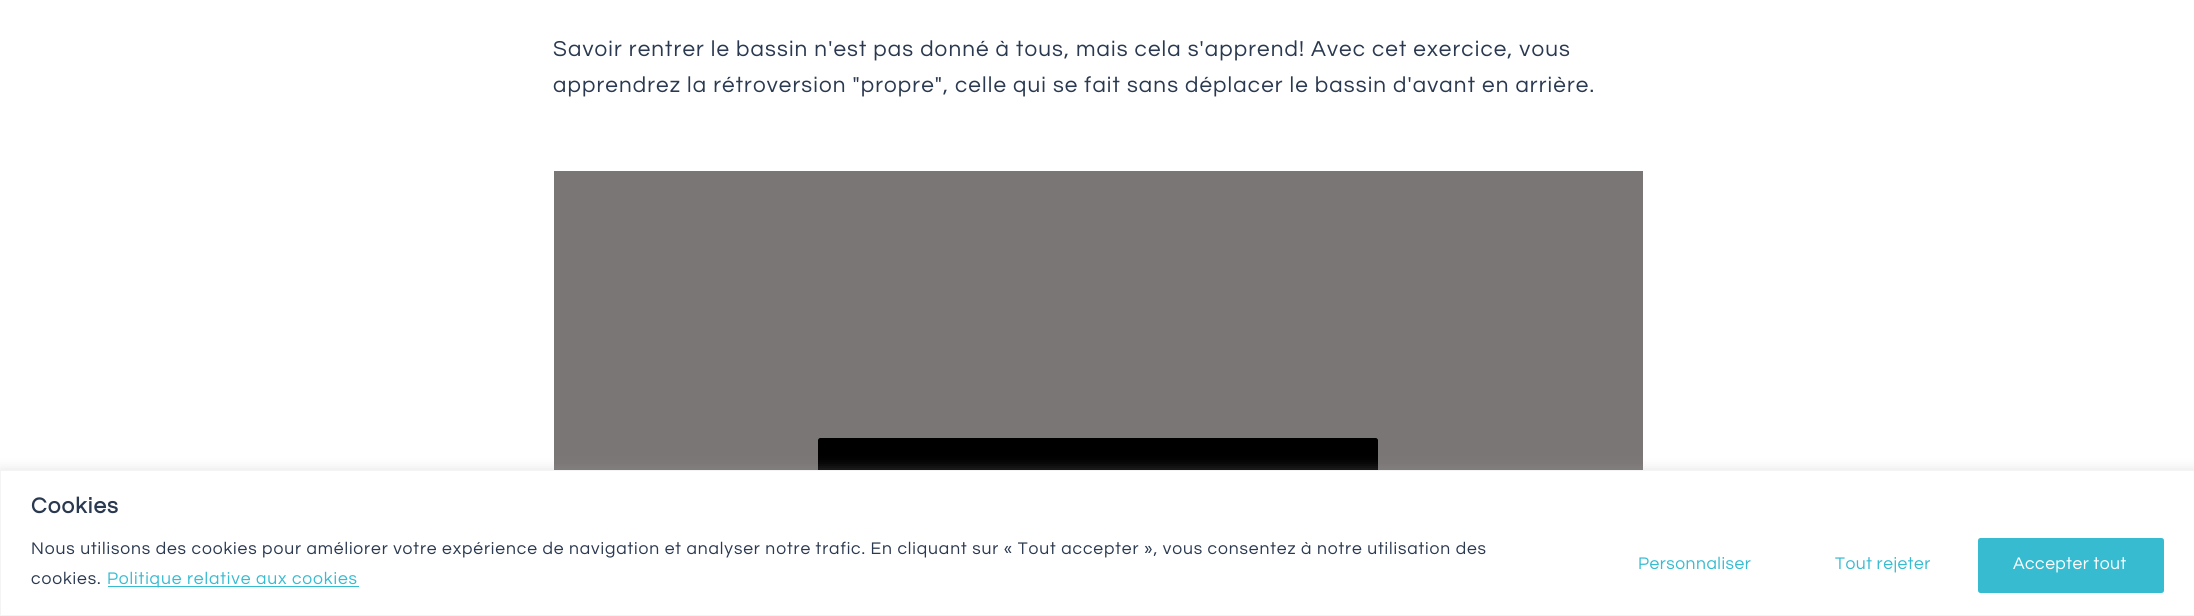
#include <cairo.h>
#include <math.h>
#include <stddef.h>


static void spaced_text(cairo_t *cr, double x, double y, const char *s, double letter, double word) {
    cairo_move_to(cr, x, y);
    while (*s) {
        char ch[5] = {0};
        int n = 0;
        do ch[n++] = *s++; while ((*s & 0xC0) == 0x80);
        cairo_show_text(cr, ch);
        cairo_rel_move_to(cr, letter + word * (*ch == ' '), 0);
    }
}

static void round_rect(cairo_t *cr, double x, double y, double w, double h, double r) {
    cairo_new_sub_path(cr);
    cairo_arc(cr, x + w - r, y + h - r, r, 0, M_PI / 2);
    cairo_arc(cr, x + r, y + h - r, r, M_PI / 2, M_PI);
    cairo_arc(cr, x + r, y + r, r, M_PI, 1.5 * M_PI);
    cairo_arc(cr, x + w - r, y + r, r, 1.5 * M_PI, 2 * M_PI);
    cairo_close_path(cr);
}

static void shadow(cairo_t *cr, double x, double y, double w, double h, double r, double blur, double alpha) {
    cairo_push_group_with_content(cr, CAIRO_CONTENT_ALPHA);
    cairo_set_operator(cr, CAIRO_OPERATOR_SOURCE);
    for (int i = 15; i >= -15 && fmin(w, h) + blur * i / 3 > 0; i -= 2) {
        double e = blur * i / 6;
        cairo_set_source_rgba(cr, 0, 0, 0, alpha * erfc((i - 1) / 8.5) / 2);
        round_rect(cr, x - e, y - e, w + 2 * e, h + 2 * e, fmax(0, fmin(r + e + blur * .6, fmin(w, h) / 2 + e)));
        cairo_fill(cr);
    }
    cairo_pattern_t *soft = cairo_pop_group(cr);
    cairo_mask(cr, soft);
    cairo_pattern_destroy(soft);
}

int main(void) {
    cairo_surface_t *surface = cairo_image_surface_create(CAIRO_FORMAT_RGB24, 2194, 616);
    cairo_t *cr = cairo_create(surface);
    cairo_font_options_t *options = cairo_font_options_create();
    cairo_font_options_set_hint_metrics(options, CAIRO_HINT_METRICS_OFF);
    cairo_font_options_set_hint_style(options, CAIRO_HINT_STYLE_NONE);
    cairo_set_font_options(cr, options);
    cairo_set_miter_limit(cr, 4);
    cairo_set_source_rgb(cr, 1, 1, 1);
    cairo_paint(cr);
    cairo_select_font_face(cr, "Questrial", CAIRO_FONT_SLANT_NORMAL, CAIRO_FONT_WEIGHT_NORMAL);
    cairo_set_font_size(cr, 22.45);
    cairo_set_source_rgb(cr, 0.165, 0.224, 0.314);
    spaced_text(cr, 553, 56, "Savoir rentrer le bassin n'est pas donné à tous, mais cela s'apprend! Avec cet exercice, vous", 1.12, 0);
    spaced_text(cr, 553, 92, "apprendrez la rétroversion \"propre\", celle qui se fait sans déplacer le bassin d'avant en arrière.", 1.12, 0);
    cairo_set_source_rgb(cr, 0.478, 0.463, 0.463);
    cairo_rectangle(cr, 554, 171, 1089, 299);
    cairo_fill(cr);
    cairo_set_source_rgb(cr, 0, 0, 0);
    round_rect(cr, 818.5, 438.5, 559, 61, 2);
    cairo_fill_preserve(cr);
    cairo_set_line_width(cr, 1);
    cairo_stroke(cr);
    cairo_set_source_rgb(cr, 0.675, 0.671, 0.671);
    shadow(cr, 0, 469, 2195, 146, 0, 6, 0.3);
    cairo_set_source_rgb(cr, 1, 1, 1);
    cairo_rectangle(cr, 0.5, 470.5, 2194, 145);
    cairo_fill_preserve(cr);
    cairo_set_source_rgb(cr, 0.957, 0.957, 0.957);
    cairo_stroke(cr);
    cairo_select_font_face(cr, "Questrial", CAIRO_FONT_SLANT_NORMAL, CAIRO_FONT_WEIGHT_BOLD);
    cairo_set_font_size(cr, 22.5);
    cairo_set_source_rgb(cr, 0.165, 0.224, 0.314);
    spaced_text(cr, 31, 513, "Cookies", 1.12, 0);
    cairo_select_font_face(cr, "Questrial", CAIRO_FONT_SLANT_NORMAL, CAIRO_FONT_WEIGHT_NORMAL);
    cairo_set_font_size(cr, 17.5);
    spaced_text(cr, 31, 554, "Nous utilisons des cookies pour améliorer votre expérience de navigation et analyser notre trafic. En cliquant sur « Tout accepter », vous consentez à notre utilisation des", 0.88, 0);
    spaced_text(cr, 31, 584, "cookies.", 0.88, 0);
    cairo_set_source_rgb(cr, 0.216, 0.733, 0.82);
    cairo_rectangle(cr, 108, 586, 251, 1);
    cairo_fill(cr);
    spaced_text(cr, 107, 584, "Politique relative aux cookies", 0.88, 0);
    spaced_text(cr, 1638, 569, "Personnaliser", 0.5, 0);
    spaced_text(cr, 1835, 569, "Tout rejeter", 0.5, 0);
    round_rect(cr, 1979.5, 539.5, 183, 52, 1);
    cairo_fill_preserve(cr);
    cairo_set_line_width(cr, 3);
    cairo_stroke(cr);
    cairo_set_source_rgb(cr, 1, 1, 1);
    spaced_text(cr, 2013, 569, "Accepter tout", 0.5, 0);
    cairo_surface_write_to_png(surface, "page.png");
    cairo_font_options_destroy(options);
    cairo_destroy(cr);
    cairo_surface_destroy(surface);
    return 0;
}
